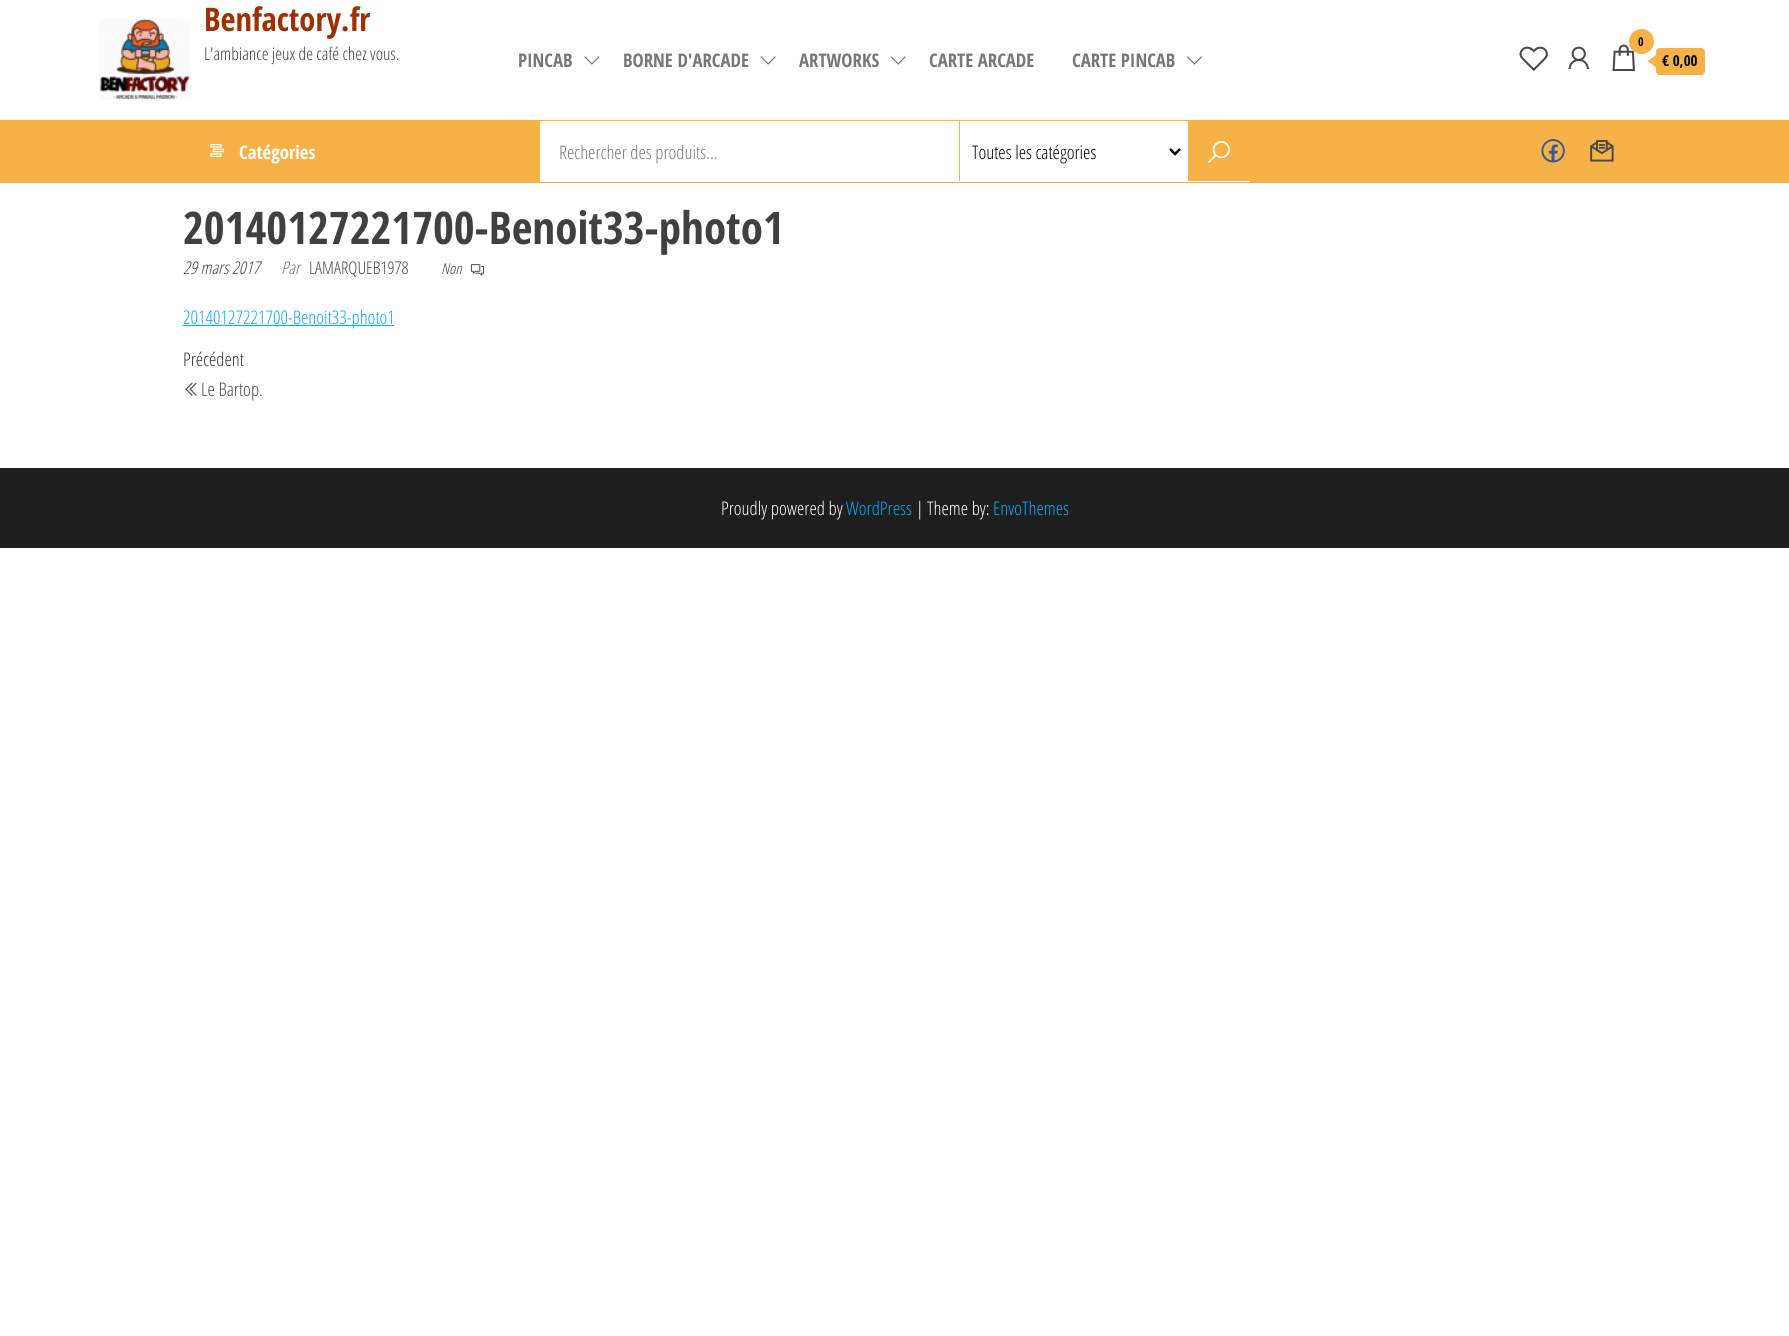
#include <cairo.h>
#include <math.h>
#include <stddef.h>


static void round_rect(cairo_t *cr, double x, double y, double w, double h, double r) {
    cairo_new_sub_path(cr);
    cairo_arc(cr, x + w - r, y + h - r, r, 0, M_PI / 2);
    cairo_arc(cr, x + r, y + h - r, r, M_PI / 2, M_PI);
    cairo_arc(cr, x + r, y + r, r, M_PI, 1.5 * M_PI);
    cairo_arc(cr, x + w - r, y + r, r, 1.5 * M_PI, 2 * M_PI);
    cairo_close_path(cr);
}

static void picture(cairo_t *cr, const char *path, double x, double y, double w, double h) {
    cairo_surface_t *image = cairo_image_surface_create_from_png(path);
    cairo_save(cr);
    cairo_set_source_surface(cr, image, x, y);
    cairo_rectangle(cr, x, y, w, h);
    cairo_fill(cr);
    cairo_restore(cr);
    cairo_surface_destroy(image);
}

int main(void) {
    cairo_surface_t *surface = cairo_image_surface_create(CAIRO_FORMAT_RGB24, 1789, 1336);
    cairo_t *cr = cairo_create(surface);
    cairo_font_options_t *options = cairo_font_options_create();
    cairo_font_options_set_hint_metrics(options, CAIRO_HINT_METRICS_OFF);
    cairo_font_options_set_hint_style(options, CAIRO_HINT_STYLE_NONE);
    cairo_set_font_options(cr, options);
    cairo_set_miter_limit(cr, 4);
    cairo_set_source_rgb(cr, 1, 1, 1);
    cairo_paint(cr);
    cairo_set_source_rgb(cr, 0.965, 0.965, 0.965);
    cairo_rectangle(cr, 0, 119, 1789, 1);
    cairo_fill(cr);
    picture(cr, "img1.png", 99, 18, 92, 82);
    cairo_select_font_face(cr, "Open Sans Condensed", CAIRO_FONT_SLANT_NORMAL, CAIRO_FONT_WEIGHT_BOLD);
    cairo_set_font_size(cr, 32.5);
    cairo_set_source_rgb(cr, 0.62, 0.188, 0.004);
    cairo_move_to(cr, 204, 31);
    cairo_show_text(cr, "Benfactory.fr");
    cairo_select_font_face(cr, "Open Sans Condensed Light", CAIRO_FONT_SLANT_NORMAL, CAIRO_FONT_WEIGHT_NORMAL);
    cairo_set_font_size(cr, 17.5);
    cairo_set_source_rgb(cr, 0.251, 0.251, 0.251);
    cairo_move_to(cr, 204, 60);
    cairo_show_text(cr, "L'ambiance jeux de café chez vous.");
    cairo_select_font_face(cr, "Open Sans Condensed", CAIRO_FONT_SLANT_NORMAL, CAIRO_FONT_WEIGHT_BOLD);
    cairo_set_font_size(cr, 18.75);
    cairo_set_source_rgb(cr, 0.467, 0.467, 0.467);
    cairo_move_to(cr, 518, 67);
    cairo_show_text(cr, "PINCAB");
    picture(cr, "img2.png", 584, 56, 16, 9);
    cairo_move_to(cr, 623, 67);
    cairo_show_text(cr, "BORNE D'ARCADE");
    picture(cr, "img3.png", 760, 56, 16, 9);
    cairo_move_to(cr, 799, 67);
    cairo_show_text(cr, "ARTWORKS");
    picture(cr, "img3.png", 890, 56, 16, 9);
    cairo_move_to(cr, 929, 67);
    cairo_show_text(cr, "CARTE ARCADE");
    cairo_move_to(cr, 1072, 67);
    cairo_show_text(cr, "CARTE PINCAB");
    picture(cr, "img4.png", 1186, 56, 16, 9);
    picture(cr, "img5.png", 1519, 46, 29, 25);
    picture(cr, "img6.png", 1568, 46, 21, 23);
    picture(cr, "img7.png", 1612, 44, 23, 27);
    cairo_set_source_rgb(cr, 0.961, 0.698, 0.275);
    cairo_arc(cr, 1641.5, 41.5, 12.5, 0, 2 * M_PI);
    cairo_fill(cr);
    cairo_set_font_size(cr, 12);
    cairo_set_source_rgb(cr, 0, 0, 0);
    cairo_move_to(cr, 1638, 46);
    cairo_show_text(cr, "0");
    cairo_set_source_rgb(cr, 0.961, 0.698, 0.275);
    round_rect(cr, 1656, 48, 49, 27, 4);
    cairo_fill(cr);
    cairo_new_path(cr);
    cairo_move_to(cr, 1656, 55);
    cairo_line_to(cr, 1656, 67.5);
    cairo_line_to(cr, 1647.5, 61);
    cairo_close_path(cr);
    cairo_fill(cr);
    cairo_set_font_size(cr, 15);
    cairo_set_source_rgb(cr, 0, 0, 0);
    cairo_move_to(cr, 1662, 66);
    cairo_show_text(cr, "€ 0,00");
    cairo_set_source_rgb(cr, 0.961, 0.698, 0.275);
    cairo_rectangle(cr, 0, 120, 1789, 63);
    cairo_fill(cr);
    cairo_set_source_rgb(cr, 0.965, 0.965, 0.965);
    cairo_rectangle(cr, 0, 183, 1789, 1);
    cairo_fill(cr);
    picture(cr, "img8.png", 210, 144, 14, 13);
    cairo_set_font_size(cr, 18.75);
    cairo_set_source_rgb(cr, 1, 1, 1);
    cairo_move_to(cr, 239, 159);
    cairo_show_text(cr, "Catégories");
    cairo_rectangle(cr, 540, 121, 710, 61);
    cairo_fill(cr);
    cairo_select_font_face(cr, "Open Sans Condensed Light", CAIRO_FONT_SLANT_NORMAL, CAIRO_FONT_WEIGHT_NORMAL);
    cairo_set_source_rgb(cr, 0.467, 0.467, 0.467);
    cairo_move_to(cr, 559, 159);
    cairo_show_text(cr, "Rechercher des produits...");
    cairo_set_source_rgb(cr, 0.961, 0.698, 0.275);
    cairo_rectangle(cr, 959, 121, 1, 60);
    cairo_fill(cr);
    cairo_new_path(cr);
    cairo_move_to(cr, 1170, 149);
    cairo_line_to(cr, 1175, 154);
    cairo_line_to(cr, 1180, 149);
    cairo_set_source_rgb(cr, 0, 0, 0);
    cairo_set_line_width(cr, 2.5);
    cairo_stroke(cr);
    cairo_move_to(cr, 972, 159);
    cairo_show_text(cr, "Toutes les catégories");
    cairo_set_source_rgb(cr, 0.961, 0.698, 0.275);
    cairo_rectangle(cr, 1188, 121, 62, 60);
    cairo_fill(cr);
    picture(cr, "img9.png", 1207, 141, 23, 22);
    picture(cr, "img10.png", 1541, 139, 24, 24);
    picture(cr, "img11.png", 1590, 140, 24, 22);
    cairo_select_font_face(cr, "Open Sans Condensed", CAIRO_FONT_SLANT_NORMAL, CAIRO_FONT_WEIGHT_BOLD);
    cairo_set_font_size(cr, 45);
    cairo_set_source_rgb(cr, 0.251, 0.251, 0.251);
    cairo_move_to(cr, 183, 244);
    cairo_show_text(cr, "20140127221700-Benoit33-photo1");
    cairo_select_font_face(cr, "Open Sans Condensed Light", CAIRO_FONT_SLANT_ITALIC, CAIRO_FONT_WEIGHT_NORMAL);
    cairo_set_font_size(cr, 17.5);
    cairo_move_to(cr, 183, 274);
    cairo_show_text(cr, "29 mars 2017");
    cairo_set_source_rgb(cr, 0.467, 0.467, 0.467);
    cairo_move_to(cr, 281, 274);
    cairo_show_text(cr, "Par");
    cairo_select_font_face(cr, "Open Sans Condensed Light", CAIRO_FONT_SLANT_NORMAL, CAIRO_FONT_WEIGHT_NORMAL);
    cairo_set_source_rgb(cr, 0.282, 0.282, 0.282);
    cairo_move_to(cr, 309, 274);
    cairo_show_text(cr, "LAMARQUEB1978");
    cairo_select_font_face(cr, "Open Sans Condensed Light", CAIRO_FONT_SLANT_ITALIC, CAIRO_FONT_WEIGHT_NORMAL);
    cairo_set_font_size(cr, 15);
    cairo_set_source_rgb(cr, 0.251, 0.251, 0.251);
    cairo_move_to(cr, 441, 274);
    cairo_show_text(cr, "Non");
    picture(cr, "img12.png", 470, 264, 15, 12);
    cairo_set_source_rgb(cr, 0.035, 0.667, 0.98);
    cairo_rectangle(cr, 183, 325, 211, 1);
    cairo_fill(cr);
    cairo_select_font_face(cr, "Open Sans Condensed Light", CAIRO_FONT_SLANT_NORMAL, CAIRO_FONT_WEIGHT_NORMAL);
    cairo_set_font_size(cr, 18.75);
    cairo_move_to(cr, 183, 324);
    cairo_show_text(cr, "20140127221700-Benoit33-photo1");
    cairo_set_source_rgb(cr, 0.2, 0.2, 0.2);
    cairo_move_to(cr, 183, 366);
    cairo_show_text(cr, "Précédent");
    picture(cr, "img13.png", 185, 382, 12, 14);
    cairo_set_source_rgb(cr, 0.282, 0.282, 0.282);
    cairo_move_to(cr, 201, 396);
    cairo_show_text(cr, "Le Bartop.");
    cairo_set_source_rgb(cr, 0.118, 0.118, 0.118);
    cairo_rectangle(cr, 0, 468, 1789, 80);
    cairo_fill(cr);
    cairo_set_source_rgb(cr, 1, 1, 1);
    cairo_move_to(cr, 721, 515);
    cairo_show_text(cr, "Proudly powered by");
    cairo_set_source_rgb(cr, 0.035, 0.667, 0.98);
    cairo_move_to(cr, 846, 515);
    cairo_show_text(cr, "WordPress");
    cairo_set_source_rgb(cr, 1, 1, 1);
    cairo_move_to(cr, 916, 515);
    cairo_show_text(cr, "| Theme by:");
    cairo_set_source_rgb(cr, 0.035, 0.667, 0.98);
    cairo_move_to(cr, 993, 515);
    cairo_show_text(cr, "EnvoThemes");
    cairo_surface_write_to_png(surface, "page.png");
    cairo_font_options_destroy(options);
    cairo_destroy(cr);
    cairo_surface_destroy(surface);
    return 0;
}
